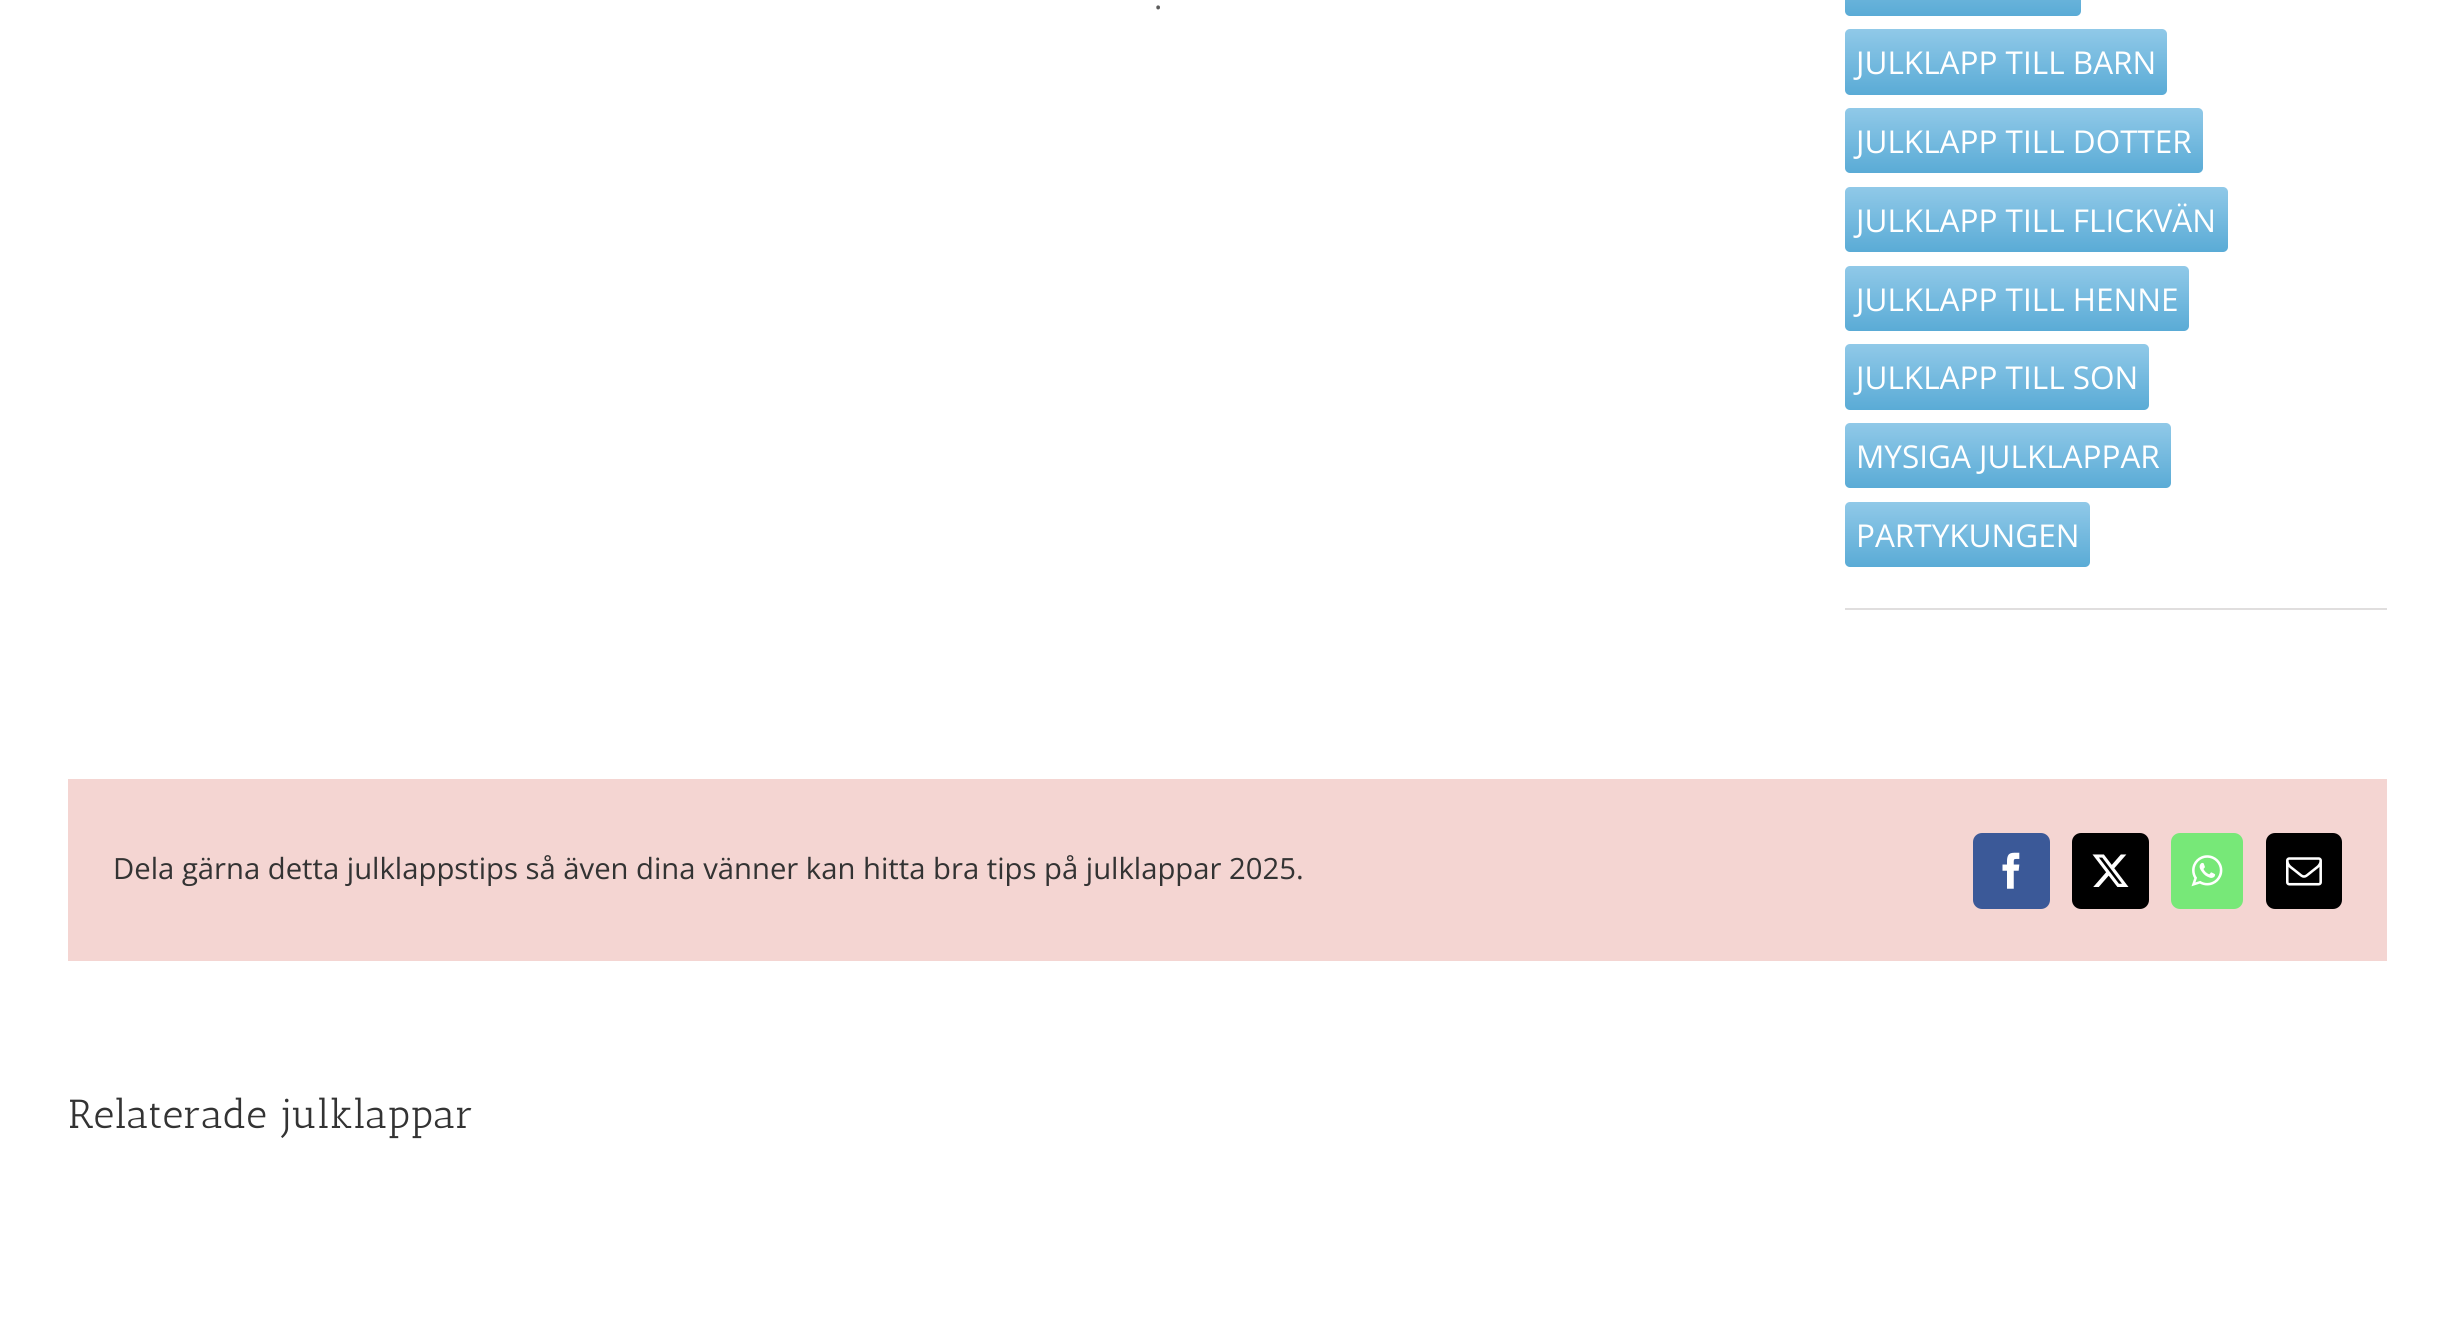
#include <cairo.h>
#include <math.h>
#include <stddef.h>


static void round_rect(cairo_t *cr, double x, double y, double w, double h, double r) {
    cairo_new_sub_path(cr);
    cairo_arc(cr, x + w - r, y + h - r, r, 0, M_PI / 2);
    cairo_arc(cr, x + r, y + h - r, r, M_PI / 2, M_PI);
    cairo_arc(cr, x + r, y + r, r, M_PI, 1.5 * M_PI);
    cairo_arc(cr, x + w - r, y + r, r, 1.5 * M_PI, 2 * M_PI);
    cairo_close_path(cr);
}

static void picture(cairo_t *cr, const char *path, double x, double y, double w, double h) {
    cairo_surface_t *image = cairo_image_surface_create_from_png(path);
    cairo_save(cr);
    cairo_set_source_surface(cr, image, x, y);
    cairo_rectangle(cr, x, y, w, h);
    cairo_fill(cr);
    cairo_restore(cr);
    cairo_surface_destroy(image);
}

int main(void) {
    cairo_surface_t *surface = cairo_image_surface_create(CAIRO_FORMAT_RGB24, 2454, 1332);
    cairo_t *cr = cairo_create(surface);
    cairo_font_options_t *options = cairo_font_options_create();
    cairo_font_options_set_hint_metrics(options, CAIRO_HINT_METRICS_OFF);
    cairo_font_options_set_hint_style(options, CAIRO_HINT_STYLE_NONE);
    cairo_set_font_options(cr, options);
    cairo_set_miter_limit(cr, 4);
    cairo_pattern_t *gradient;
    cairo_set_source_rgb(cr, 1, 1, 1);
    cairo_paint(cr);
    cairo_select_font_face(cr, "Open Sans", CAIRO_FONT_SLANT_NORMAL, CAIRO_FONT_WEIGHT_NORMAL);
    cairo_set_font_size(cr, 31.5);
    cairo_set_source_rgb(cr, 0.357, 0.357, 0.357);
    cairo_move_to(cr, 1154, 9);
    cairo_show_text(cr, ".");
    cairo_set_source_rgb(cr, 0.878, 0.871, 0.871);
    cairo_rectangle(cr, 1845, 608, 542, 2);
    cairo_fill(cr);
    gradient = cairo_pattern_create_linear(1963, 16, 1963, -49);
    cairo_pattern_add_color_stop_rgba(gradient, 0, 0.353, 0.671, 0.839, 1);
    cairo_pattern_add_color_stop_rgba(gradient, 1, 0.565, 0.788, 0.91, 1);
    cairo_set_source(cr, gradient);
    cairo_pattern_destroy(gradient);
    round_rect(cr, 1845, -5, 236, 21, 5);
    cairo_fill(cr);
    gradient = cairo_pattern_create_linear(2006, 95, 2006, 29);
    cairo_pattern_add_color_stop_rgba(gradient, 0, 0.353, 0.671, 0.839, 1);
    cairo_pattern_add_color_stop_rgba(gradient, 1, 0.565, 0.788, 0.91, 1);
    cairo_set_source(cr, gradient);
    cairo_pattern_destroy(gradient);
    round_rect(cr, 1845, 29, 322, 66, 5);
    cairo_fill(cr);
    cairo_set_source_rgb(cr, 1, 1, 1);
    cairo_move_to(cr, 1856, 74);
    cairo_show_text(cr, "JULKLAPP TILL BARN");
    gradient = cairo_pattern_create_linear(2024, 173, 2024, 108);
    cairo_pattern_add_color_stop_rgba(gradient, 0, 0.353, 0.671, 0.839, 1);
    cairo_pattern_add_color_stop_rgba(gradient, 1, 0.565, 0.788, 0.91, 1);
    cairo_set_source(cr, gradient);
    cairo_pattern_destroy(gradient);
    round_rect(cr, 1845, 108, 358, 65, 5);
    cairo_fill(cr);
    cairo_set_source_rgb(cr, 1, 1, 1);
    cairo_move_to(cr, 1856, 153);
    cairo_show_text(cr, "JULKLAPP TILL DOTTER");
    gradient = cairo_pattern_create_linear(2036, 252, 2036, 187);
    cairo_pattern_add_color_stop_rgba(gradient, 0, 0.353, 0.671, 0.839, 1);
    cairo_pattern_add_color_stop_rgba(gradient, 1, 0.565, 0.788, 0.91, 1);
    cairo_set_source(cr, gradient);
    cairo_pattern_destroy(gradient);
    round_rect(cr, 1845, 187, 383, 65, 5);
    cairo_fill(cr);
    cairo_set_source_rgb(cr, 1, 1, 1);
    cairo_move_to(cr, 1856, 232);
    cairo_show_text(cr, "JULKLAPP TILL FLICKVÄN");
    gradient = cairo_pattern_create_linear(2017, 331, 2017, 266);
    cairo_pattern_add_color_stop_rgba(gradient, 0, 0.353, 0.671, 0.839, 1);
    cairo_pattern_add_color_stop_rgba(gradient, 1, 0.565, 0.788, 0.91, 1);
    cairo_set_source(cr, gradient);
    cairo_pattern_destroy(gradient);
    round_rect(cr, 1845, 266, 344, 65, 5);
    cairo_fill(cr);
    cairo_set_source_rgb(cr, 1, 1, 1);
    cairo_move_to(cr, 1856, 311);
    cairo_show_text(cr, "JULKLAPP TILL HENNE");
    gradient = cairo_pattern_create_linear(1997, 410, 1997, 344);
    cairo_pattern_add_color_stop_rgba(gradient, 0, 0.353, 0.671, 0.839, 1);
    cairo_pattern_add_color_stop_rgba(gradient, 1, 0.565, 0.788, 0.91, 1);
    cairo_set_source(cr, gradient);
    cairo_pattern_destroy(gradient);
    round_rect(cr, 1845, 344, 304, 66, 5);
    cairo_fill(cr);
    cairo_set_source_rgb(cr, 1, 1, 1);
    cairo_move_to(cr, 1856, 389);
    cairo_show_text(cr, "JULKLAPP TILL SON");
    gradient = cairo_pattern_create_linear(2008, 488, 2008, 423);
    cairo_pattern_add_color_stop_rgba(gradient, 0, 0.353, 0.671, 0.839, 1);
    cairo_pattern_add_color_stop_rgba(gradient, 1, 0.565, 0.788, 0.91, 1);
    cairo_set_source(cr, gradient);
    cairo_pattern_destroy(gradient);
    round_rect(cr, 1845, 423, 326, 65, 5);
    cairo_fill(cr);
    cairo_set_source_rgb(cr, 1, 1, 1);
    cairo_move_to(cr, 1856, 468);
    cairo_show_text(cr, "MYSIGA JULKLAPPAR");
    gradient = cairo_pattern_create_linear(1968, 567, 1968, 502);
    cairo_pattern_add_color_stop_rgba(gradient, 0, 0.353, 0.671, 0.839, 1);
    cairo_pattern_add_color_stop_rgba(gradient, 1, 0.565, 0.788, 0.91, 1);
    cairo_set_source(cr, gradient);
    cairo_pattern_destroy(gradient);
    round_rect(cr, 1845, 502, 245, 65, 5);
    cairo_fill(cr);
    cairo_set_source_rgb(cr, 1, 1, 1);
    cairo_move_to(cr, 1856, 547);
    cairo_show_text(cr, "PARTYKUNGEN");
    cairo_set_source_rgb(cr, 0.957, 0.835, 0.824);
    cairo_rectangle(cr, 68, 779, 2319, 182);
    cairo_fill(cr);
    cairo_set_font_size(cr, 29.25);
    cairo_set_source_rgb(cr, 0.2, 0.2, 0.2);
    cairo_move_to(cr, 113, 879);
    cairo_show_text(cr, "Dela gärna detta julklappstips så även dina vänner kan hitta bra tips på julklappar 2025.");
    cairo_set_source_rgb(cr, 0.231, 0.349, 0.596);
    round_rect(cr, 1974, 834, 75, 74, 8);
    cairo_fill_preserve(cr);
    cairo_stroke(cr);
    picture(cr, "img1.png", 2002, 852, 18, 37);
    cairo_set_source_rgb(cr, 0, 0, 0);
    round_rect(cr, 2073, 834, 75, 74, 8);
    cairo_fill_preserve(cr);
    cairo_stroke(cr);
    picture(cr, "img2.png", 2092, 854, 37, 33);
    cairo_set_source_rgb(cr, 0.467, 0.91, 0.471);
    round_rect(cr, 2172, 834, 70, 74, 8);
    cairo_fill_preserve(cr);
    cairo_stroke(cr);
    picture(cr, "img3.png", 2191, 855, 32, 32);
    cairo_set_source_rgb(cr, 0, 0, 0);
    round_rect(cr, 2267, 834, 74, 74, 8);
    cairo_fill_preserve(cr);
    cairo_stroke(cr);
    picture(cr, "img4.png", 2286, 857, 36, 29);
    cairo_select_font_face(cr, "Antic Slab", CAIRO_FONT_SLANT_NORMAL, CAIRO_FONT_WEIGHT_NORMAL);
    cairo_set_font_size(cr, 40.5);
    cairo_set_source_rgb(cr, 0.2, 0.2, 0.2);
    cairo_move_to(cr, 68, 1128);
    cairo_show_text(cr, "Relaterade julklappar");
    cairo_surface_write_to_png(surface, "page.png");
    cairo_font_options_destroy(options);
    cairo_destroy(cr);
    cairo_surface_destroy(surface);
    return 0;
}
